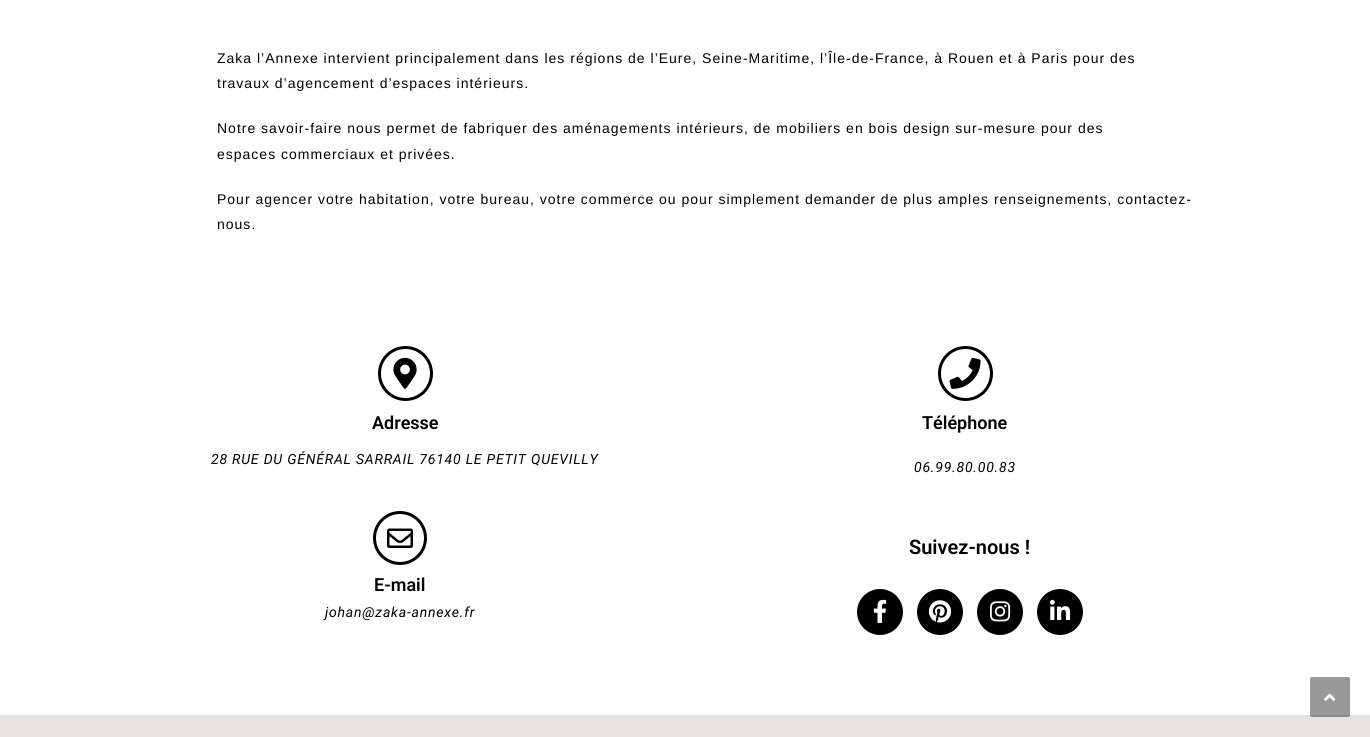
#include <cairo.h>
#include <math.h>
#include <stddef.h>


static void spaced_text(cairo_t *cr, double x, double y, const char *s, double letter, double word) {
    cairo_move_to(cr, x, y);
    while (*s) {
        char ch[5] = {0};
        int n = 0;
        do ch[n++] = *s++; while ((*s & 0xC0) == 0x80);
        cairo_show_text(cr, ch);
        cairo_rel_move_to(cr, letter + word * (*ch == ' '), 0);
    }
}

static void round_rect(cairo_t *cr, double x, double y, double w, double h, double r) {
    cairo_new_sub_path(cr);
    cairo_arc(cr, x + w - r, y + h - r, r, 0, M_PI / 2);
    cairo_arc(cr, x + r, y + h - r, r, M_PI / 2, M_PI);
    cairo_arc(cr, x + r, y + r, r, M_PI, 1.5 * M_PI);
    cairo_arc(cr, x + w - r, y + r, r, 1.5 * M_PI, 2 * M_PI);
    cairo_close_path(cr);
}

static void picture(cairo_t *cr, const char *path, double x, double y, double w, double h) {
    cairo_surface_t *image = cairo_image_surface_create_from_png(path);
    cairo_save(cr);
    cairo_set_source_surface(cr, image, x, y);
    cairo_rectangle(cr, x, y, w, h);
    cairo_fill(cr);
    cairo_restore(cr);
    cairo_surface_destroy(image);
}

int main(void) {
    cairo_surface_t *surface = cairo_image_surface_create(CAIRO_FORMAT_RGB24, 1370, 737);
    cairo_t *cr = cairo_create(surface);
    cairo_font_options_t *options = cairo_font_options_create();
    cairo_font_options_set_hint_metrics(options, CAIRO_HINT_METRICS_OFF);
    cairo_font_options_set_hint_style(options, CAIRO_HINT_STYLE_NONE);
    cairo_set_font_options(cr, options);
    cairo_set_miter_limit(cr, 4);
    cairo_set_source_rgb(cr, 1, 1, 1);
    cairo_paint(cr);
    cairo_select_font_face(cr, "Liberation Sans", CAIRO_FONT_SLANT_NORMAL, CAIRO_FONT_WEIGHT_NORMAL);
    cairo_set_font_size(cr, 14);
    cairo_set_source_rgb(cr, 0, 0, 0);
    spaced_text(cr, 217, 63, "Zaka l’Annexe intervient principalement dans les régions de l’Eure, Seine-Maritime, l’Île-de-France, à Rouen et à Paris pour des", 1, 0);
    spaced_text(cr, 217, 88, "travaux d’agencement d’espaces intérieurs.", 1, 0);
    spaced_text(cr, 217, 133, "Notre savoir-faire nous permet de fabriquer des aménagements intérieurs, de mobiliers en bois design sur-mesure pour des", 1, 0);
    spaced_text(cr, 217, 159, "espaces commerciaux et privées.", 1, 0);
    spaced_text(cr, 217, 204, "Pour agencer votre habitation, votre bureau, votre commerce ou pour simplement demander de plus amples renseignements, contactez-", 1, 0);
    spaced_text(cr, 217, 229, "nous.", 1, 0);
    cairo_new_path(cr);
    cairo_arc(cr, 405.5, 373.5, 26, 0, 2 * M_PI);
    cairo_set_line_width(cr, 3);
    cairo_stroke(cr);
    picture(cr, "img1.png", 393, 357, 24, 32);
    cairo_select_font_face(cr, "Roboto SemiBold", CAIRO_FONT_SLANT_NORMAL, CAIRO_FONT_WEIGHT_NORMAL);
    cairo_set_font_size(cr, 18);
    cairo_move_to(cr, 372, 429);
    cairo_show_text(cr, "Adresse");
    cairo_select_font_face(cr, "Roboto", CAIRO_FONT_SLANT_ITALIC, CAIRO_FONT_WEIGHT_NORMAL);
    cairo_set_font_size(cr, 14);
    spaced_text(cr, 211, 464, "28 RUE DU GÉNÉRAL SARRAIL 76140 LE PETIT QUEVILLY", 0.8, 0);
    cairo_new_path(cr);
    cairo_arc(cr, 965.5, 373.5, 26, 0, 2 * M_PI);
    cairo_stroke(cr);
    picture(cr, "img2.png", 949, 357, 32, 32);
    cairo_select_font_face(cr, "Roboto SemiBold", CAIRO_FONT_SLANT_NORMAL, CAIRO_FONT_WEIGHT_NORMAL);
    cairo_set_font_size(cr, 18);
    cairo_move_to(cr, 922, 429);
    cairo_show_text(cr, "Téléphone");
    cairo_select_font_face(cr, "Roboto", CAIRO_FONT_SLANT_ITALIC, CAIRO_FONT_WEIGHT_NORMAL);
    cairo_set_font_size(cr, 14);
    spaced_text(cr, 914, 472, "06.99.80.00.83", 0.8, 0);
    cairo_select_font_face(cr, "Roboto SemiBold", CAIRO_FONT_SLANT_NORMAL, CAIRO_FONT_WEIGHT_NORMAL);
    cairo_set_font_size(cr, 20);
    cairo_move_to(cr, 909, 554);
    cairo_show_text(cr, "Suivez-nous !");
    cairo_new_path(cr);
    cairo_arc(cr, 880, 612, 23, 0, 2 * M_PI);
    cairo_fill(cr);
    picture(cr, "img3.png", 873, 599, 14, 24);
    cairo_arc(cr, 940, 612, 23, 0, 2 * M_PI);
    cairo_fill(cr);
    picture(cr, "img4.png", 928, 600, 24, 23);
    cairo_arc(cr, 1000, 612, 23, 0, 2 * M_PI);
    cairo_fill(cr);
    picture(cr, "img5.png", 990, 601, 21, 21);
    cairo_arc(cr, 1060, 612, 23, 0, 2 * M_PI);
    cairo_fill(cr);
    picture(cr, "img6.png", 1050, 599, 21, 21);
    cairo_arc(cr, 400, 538, 25.5, 0, 2 * M_PI);
    cairo_stroke(cr);
    picture(cr, "img7.png", 387, 528, 26, 20);
    cairo_set_font_size(cr, 18);
    cairo_move_to(cr, 374, 591);
    cairo_show_text(cr, "E-mail");
    cairo_select_font_face(cr, "Roboto", CAIRO_FONT_SLANT_ITALIC, CAIRO_FONT_WEIGHT_NORMAL);
    cairo_set_font_size(cr, 14);
    spaced_text(cr, 325, 617, "johan@zaka-annexe.fr", 0.8, 0);
    cairo_set_source_rgb(cr, 0.898, 0.89, 0.875);
    cairo_rectangle(cr, 0, 715, 1370, 22);
    cairo_fill(cr);
    cairo_set_source_rgba(cr, 0, 0, 0, 0.4);
    round_rect(cr, 1310, 677, 40, 40, 2);
    cairo_fill(cr);
    picture(cr, "img8.png", 1324, 693, 12, 8);
    cairo_surface_write_to_png(surface, "page.png");
    cairo_font_options_destroy(options);
    cairo_destroy(cr);
    cairo_surface_destroy(surface);
    return 0;
}
